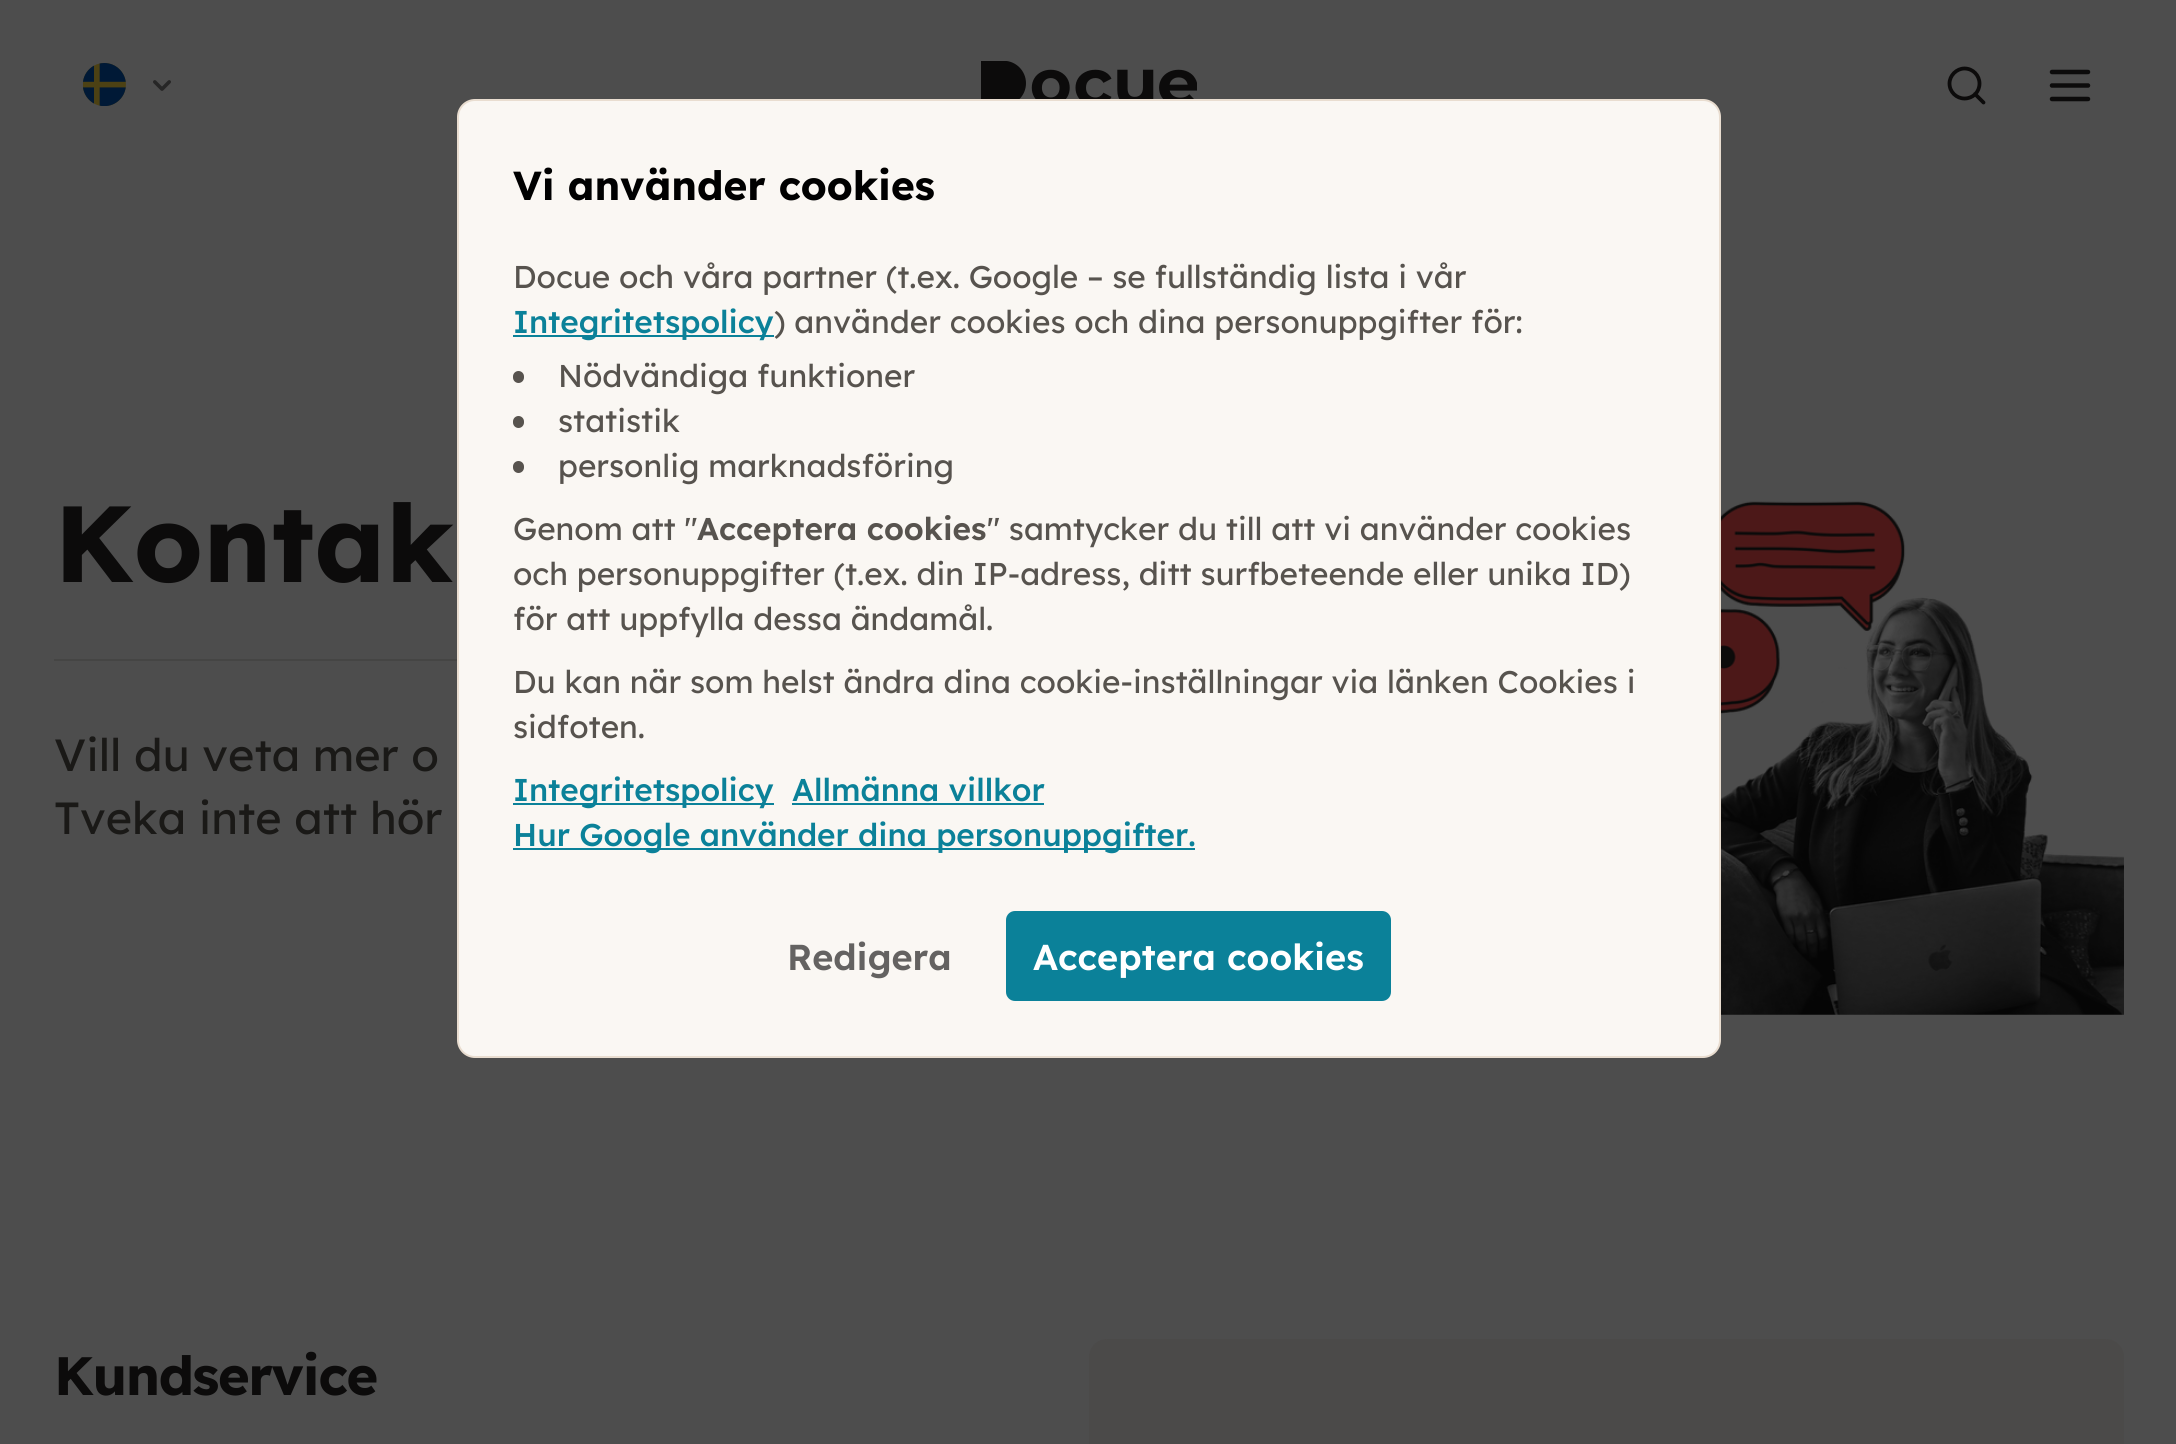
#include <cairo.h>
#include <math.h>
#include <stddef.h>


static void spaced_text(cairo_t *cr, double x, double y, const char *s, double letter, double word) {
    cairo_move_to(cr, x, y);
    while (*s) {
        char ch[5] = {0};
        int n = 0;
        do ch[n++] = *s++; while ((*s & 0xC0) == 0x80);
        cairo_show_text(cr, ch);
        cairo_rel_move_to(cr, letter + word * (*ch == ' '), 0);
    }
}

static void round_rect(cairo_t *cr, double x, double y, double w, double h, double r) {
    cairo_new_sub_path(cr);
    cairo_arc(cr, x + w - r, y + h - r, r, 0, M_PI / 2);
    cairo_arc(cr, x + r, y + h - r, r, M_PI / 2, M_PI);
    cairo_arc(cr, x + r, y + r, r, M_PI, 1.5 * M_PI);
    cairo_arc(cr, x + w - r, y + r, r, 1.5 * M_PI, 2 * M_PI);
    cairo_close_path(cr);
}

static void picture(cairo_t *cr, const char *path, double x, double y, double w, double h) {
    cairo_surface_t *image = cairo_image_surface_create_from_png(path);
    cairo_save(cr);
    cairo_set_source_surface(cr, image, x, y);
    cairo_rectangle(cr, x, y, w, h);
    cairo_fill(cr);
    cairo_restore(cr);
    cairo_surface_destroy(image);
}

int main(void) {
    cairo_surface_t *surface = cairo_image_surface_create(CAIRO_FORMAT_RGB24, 2176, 1444);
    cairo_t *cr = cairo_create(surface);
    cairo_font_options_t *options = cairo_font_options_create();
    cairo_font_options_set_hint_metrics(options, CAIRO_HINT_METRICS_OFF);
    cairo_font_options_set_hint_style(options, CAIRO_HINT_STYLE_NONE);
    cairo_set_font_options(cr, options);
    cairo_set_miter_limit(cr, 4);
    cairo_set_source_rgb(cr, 0.302, 0.302, 0.302);
    cairo_paint(cr);
    picture(cr, "img1.png", 83, 63, 43, 43);
    picture(cr, "img2.png", 153, 80, 18, 11);
    picture(cr, "img3.png", 981, 61, 216, 38);
    cairo_new_path(cr);
    cairo_move_to(cr, 1983.5, 102.5);
    cairo_line_to(cr, 1975, 94);
    cairo_move_to(cr, 1979.5, 83.5);
    cairo_curve_to(cr, 1979.5, 92, 1973, 98.5, 1964.5, 98.5);
    cairo_curve_to(cr, 1956.5, 98.5, 1949.5, 92, 1949.5, 83.5);
    cairo_curve_to(cr, 1949.5, 75.5, 1956.5, 68.5, 1964.5, 68.5);
    cairo_curve_to(cr, 1973, 68.5, 1979.5, 75.5, 1979.5, 83.5);
    cairo_close_path(cr);
    cairo_set_source_rgb(cr, 0.047, 0.043, 0.043);
    cairo_set_line_width(cr, 3.8);
    cairo_set_line_cap(cr, CAIRO_LINE_CAP_ROUND);
    cairo_set_line_join(cr, CAIRO_LINE_JOIN_ROUND);
    cairo_stroke(cr);
    cairo_new_path(cr);
    cairo_move_to(cr, 2052, 72);
    cairo_line_to(cr, 2088, 72);
    cairo_move_to(cr, 2052, 85.5);
    cairo_line_to(cr, 2088, 85.5);
    cairo_move_to(cr, 2052, 99);
    cairo_line_to(cr, 2088, 99);
    cairo_set_line_width(cr, 4.5);
    cairo_stroke(cr);
    cairo_select_font_face(cr, "Lexend", CAIRO_FONT_SLANT_NORMAL, CAIRO_FONT_WEIGHT_BOLD);
    cairo_set_font_size(cr, 108);
    cairo_move_to(cr, 54, 582);
    cairo_show_text(cr, "Kontak");
    cairo_set_source_rgb(cr, 0.271, 0.271, 0.267);
    cairo_rectangle(cr, 54, 659, 403, 2);
    cairo_fill(cr);
    cairo_select_font_face(cr, "Lexend", CAIRO_FONT_SLANT_NORMAL, CAIRO_FONT_WEIGHT_NORMAL);
    cairo_set_font_size(cr, 45);
    cairo_set_source_rgb(cr, 0.102, 0.098, 0.09);
    cairo_move_to(cr, 54, 771);
    cairo_show_text(cr, "Vill du veta mer o");
    cairo_move_to(cr, 54, 834);
    cairo_show_text(cr, "Tveka inte att hör");
    picture(cr, "img4.png", 1721, 501, 403, 514);
    cairo_select_font_face(cr, "Lexend", CAIRO_FONT_SLANT_NORMAL, CAIRO_FONT_WEIGHT_BOLD);
    cairo_set_font_size(cr, 54);
    cairo_set_source_rgb(cr, 0.047, 0.043, 0.043);
    spaced_text(cr, 54, 1395, "Kundservice", -1.4, 0);
    cairo_set_source_rgb(cr, 0.294, 0.29, 0.286);
    round_rect(cr, 1089, 1339, 1035, 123, 18);
    cairo_fill(cr);
    cairo_set_source_rgb(cr, 0.98, 0.965, 0.953);
    round_rect(cr, 458, 100, 1262, 957, 17);
    cairo_fill_preserve(cr);
    cairo_set_source_rgb(cr, 0.914, 0.867, 0.816);
    cairo_set_line_width(cr, 2);
    cairo_set_line_cap(cr, CAIRO_LINE_CAP_BUTT);
    cairo_set_line_join(cr, CAIRO_LINE_JOIN_MITER);
    cairo_stroke(cr);
    cairo_set_font_size(cr, 40.5);
    cairo_set_source_rgb(cr, 0, 0, 0);
    cairo_move_to(cr, 513, 200);
    cairo_show_text(cr, "Vi använder cookies");
    cairo_select_font_face(cr, "Lexend", CAIRO_FONT_SLANT_NORMAL, CAIRO_FONT_WEIGHT_NORMAL);
    cairo_set_font_size(cr, 31.5);
    cairo_set_source_rgb(cr, 0.341, 0.325, 0.306);
    cairo_move_to(cr, 513, 288);
    cairo_show_text(cr, "Docue och våra partner (t.ex. Google – se fullständig lista i vår");
    cairo_set_source_rgb(cr, 0.043, 0.506, 0.6);
    cairo_rectangle(cr, 513, 335, 261, 2);
    cairo_fill(cr);
    cairo_select_font_face(cr, "Lexend Medium", CAIRO_FONT_SLANT_NORMAL, CAIRO_FONT_WEIGHT_NORMAL);
    cairo_move_to(cr, 513, 333);
    cairo_show_text(cr, "Integritetspolicy");
    cairo_select_font_face(cr, "Lexend", CAIRO_FONT_SLANT_NORMAL, CAIRO_FONT_WEIGHT_NORMAL);
    cairo_set_source_rgb(cr, 0.341, 0.325, 0.306);
    cairo_move_to(cr, 774, 333);
    cairo_show_text(cr, ") använder cookies och dina personuppgifter för:");
    round_rect(cr, 513, 371, 11, 12, 5.5);
    cairo_fill(cr);
    cairo_move_to(cr, 558, 387);
    cairo_show_text(cr, "Nödvändiga funktioner");
    round_rect(cr, 513, 416, 11, 12, 5.5);
    cairo_fill(cr);
    cairo_move_to(cr, 558, 432);
    cairo_show_text(cr, "statistik");
    round_rect(cr, 513, 461, 11, 12, 5.5);
    cairo_fill(cr);
    cairo_move_to(cr, 558, 477);
    cairo_show_text(cr, "personlig marknadsföring");
    cairo_move_to(cr, 513, 540);
    cairo_show_text(cr, "Genom att \"");
    cairo_select_font_face(cr, "Lexend SemiBold", CAIRO_FONT_SLANT_NORMAL, CAIRO_FONT_WEIGHT_NORMAL);
    cairo_move_to(cr, 697, 540);
    cairo_show_text(cr, "Acceptera cookies");
    cairo_select_font_face(cr, "Lexend", CAIRO_FONT_SLANT_NORMAL, CAIRO_FONT_WEIGHT_NORMAL);
    cairo_move_to(cr, 987, 540);
    cairo_show_text(cr, "\" samtycker du till att vi använder cookies");
    cairo_move_to(cr, 513, 585);
    cairo_show_text(cr, "och personuppgifter (t.ex. din IP-adress, ditt surfbeteende eller unika ID)");
    cairo_move_to(cr, 513, 630);
    cairo_show_text(cr, "för att uppfylla dessa ändamål.");
    cairo_move_to(cr, 513, 693);
    cairo_show_text(cr, "Du kan när som helst ändra dina cookie-inställningar via länken Cookies i");
    cairo_move_to(cr, 513, 738);
    cairo_show_text(cr, "sidfoten.");
    cairo_set_source_rgb(cr, 0.043, 0.506, 0.6);
    cairo_rectangle(cr, 513, 803, 261, 2);
    cairo_fill(cr);
    cairo_select_font_face(cr, "Lexend Medium", CAIRO_FONT_SLANT_NORMAL, CAIRO_FONT_WEIGHT_NORMAL);
    cairo_move_to(cr, 513, 801);
    cairo_show_text(cr, "Integritetspolicy");
    cairo_move_to(cr, 792, 801);
    cairo_show_text(cr, "Allmänna villkor");
    cairo_rectangle(cr, 792, 803, 252, 2);
    cairo_fill(cr);
    cairo_rectangle(cr, 513, 848, 682, 2);
    cairo_fill(cr);
    cairo_move_to(cr, 513, 846);
    cairo_show_text(cr, "Hur Google använder dina personuppgifter.");
    cairo_select_font_face(cr, "Lexend SemiBold", CAIRO_FONT_SLANT_NORMAL, CAIRO_FONT_WEIGHT_NORMAL);
    cairo_set_font_size(cr, 36);
    cairo_set_source_rgb(cr, 0.392, 0.384, 0.38);
    cairo_move_to(cr, 787, 970);
    cairo_show_text(cr, "Redigera");
    cairo_set_source_rgb(cr, 0.043, 0.506, 0.6);
    round_rect(cr, 1006, 911, 385, 90, 9);
    cairo_fill(cr);
    cairo_set_source_rgb(cr, 1, 1, 1);
    cairo_move_to(cr, 1033, 970);
    cairo_show_text(cr, "Acceptera cookies");
    cairo_surface_write_to_png(surface, "page.png");
    cairo_font_options_destroy(options);
    cairo_destroy(cr);
    cairo_surface_destroy(surface);
    return 0;
}
